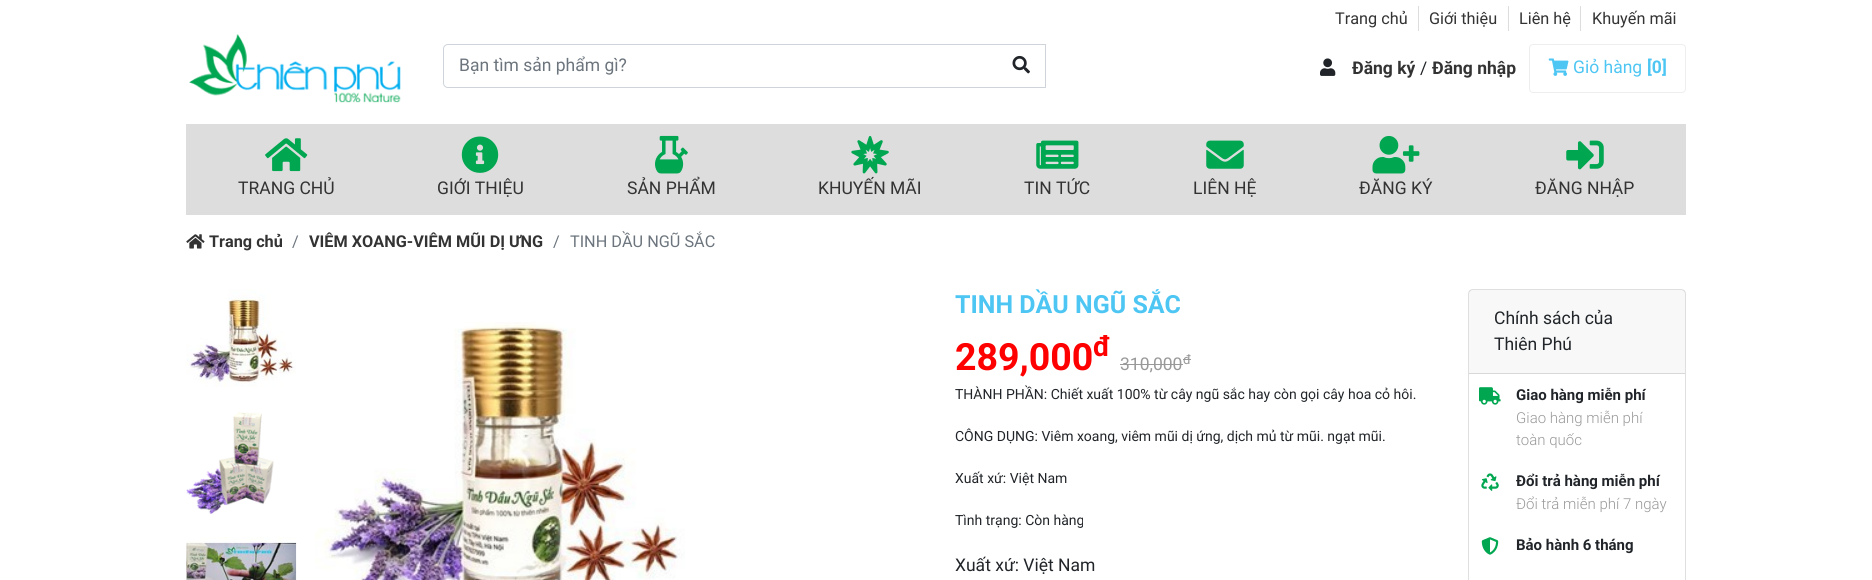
#include <cairo.h>
#include <math.h>
#include <stddef.h>


static void round_rect(cairo_t *cr, double x, double y, double w, double h, double r) {
    cairo_new_sub_path(cr);
    cairo_arc(cr, x + w - r, y + h - r, r, 0, M_PI / 2);
    cairo_arc(cr, x + r, y + h - r, r, M_PI / 2, M_PI);
    cairo_arc(cr, x + r, y + r, r, M_PI, 1.5 * M_PI);
    cairo_arc(cr, x + w - r, y + r, r, 1.5 * M_PI, 2 * M_PI);
    cairo_close_path(cr);
}

static void picture(cairo_t *cr, const char *path, double x, double y, double w, double h) {
    cairo_surface_t *image = cairo_image_surface_create_from_png(path);
    cairo_save(cr);
    cairo_set_source_surface(cr, image, x, y);
    cairo_rectangle(cr, x, y, w, h);
    cairo_fill(cr);
    cairo_restore(cr);
    cairo_surface_destroy(image);
}

int main(void) {
    cairo_surface_t *surface = cairo_image_surface_create(CAIRO_FORMAT_RGB24, 1872, 580);
    cairo_t *cr = cairo_create(surface);
    cairo_font_options_t *options = cairo_font_options_create();
    cairo_font_options_set_hint_metrics(options, CAIRO_HINT_METRICS_OFF);
    cairo_font_options_set_hint_style(options, CAIRO_HINT_STYLE_NONE);
    cairo_set_font_options(cr, options);
    cairo_set_miter_limit(cr, 4);
    cairo_set_source_rgb(cr, 1, 1, 1);
    cairo_paint(cr);
    cairo_select_font_face(cr, "Roboto", CAIRO_FONT_SLANT_NORMAL, CAIRO_FONT_WEIGHT_NORMAL);
    cairo_set_font_size(cr, 16.25);
    cairo_set_source_rgb(cr, 0.2, 0.2, 0.2);
    cairo_move_to(cr, 1335, 24);
    cairo_show_text(cr, "Trang chủ");
    cairo_set_source_rgb(cr, 0.867, 0.867, 0.867);
    cairo_rectangle(cr, 1418, 6, 1, 25);
    cairo_fill(cr);
    cairo_set_source_rgb(cr, 0.2, 0.2, 0.2);
    cairo_move_to(cr, 1429, 24);
    cairo_show_text(cr, "Giới thiệu");
    cairo_set_source_rgb(cr, 0.867, 0.867, 0.867);
    cairo_rectangle(cr, 1508, 6, 1, 25);
    cairo_fill(cr);
    cairo_set_source_rgb(cr, 0.2, 0.2, 0.2);
    cairo_move_to(cr, 1519, 24);
    cairo_show_text(cr, "Liên hệ");
    cairo_set_source_rgb(cr, 0.867, 0.867, 0.867);
    cairo_rectangle(cr, 1580, 6, 1, 25);
    cairo_fill(cr);
    cairo_set_source_rgb(cr, 0.2, 0.2, 0.2);
    cairo_move_to(cr, 1592, 24);
    cairo_show_text(cr, "Khuyến mãi");
    picture(cr, "img1.png", 189, 34, 212, 69);
    cairo_new_path(cr);
    cairo_move_to(cr, 448, 44.5);
    cairo_line_to(cr, 1045.5, 44.5);
    cairo_line_to(cr, 1045.5, 87.5);
    cairo_line_to(cr, 448, 87.5);
    cairo_curve_to(cr, 445.5, 87.5, 443.5, 85.5, 443.5, 83);
    cairo_line_to(cr, 443.5, 49);
    cairo_curve_to(cr, 443.5, 46.5, 445.5, 44.5, 448, 44.5);
    cairo_close_path(cr);
    cairo_set_source_rgb(cr, 0.808, 0.831, 0.855);
    cairo_set_line_width(cr, 1);
    cairo_stroke(cr);
    cairo_set_font_size(cr, 17.5);
    cairo_set_source_rgb(cr, 0.424, 0.459, 0.49);
    cairo_move_to(cr, 459, 71);
    cairo_show_text(cr, "Bạn tìm sản phẩm gì?");
    picture(cr, "img2.png", 1012, 55, 18, 19);
    picture(cr, "img3.png", 1320, 58, 16, 18);
    cairo_select_font_face(cr, "Roboto", CAIRO_FONT_SLANT_NORMAL, CAIRO_FONT_WEIGHT_BOLD);
    cairo_set_source_rgb(cr, 0.2, 0.2, 0.2);
    cairo_move_to(cr, 1352, 74);
    cairo_show_text(cr, "Đăng ký");
    cairo_select_font_face(cr, "Roboto", CAIRO_FONT_SLANT_NORMAL, CAIRO_FONT_WEIGHT_NORMAL);
    cairo_set_source_rgb(cr, 0.129, 0.145, 0.161);
    cairo_move_to(cr, 1420, 74);
    cairo_show_text(cr, "/");
    cairo_select_font_face(cr, "Roboto", CAIRO_FONT_SLANT_NORMAL, CAIRO_FONT_WEIGHT_BOLD);
    cairo_set_source_rgb(cr, 0.2, 0.2, 0.2);
    cairo_move_to(cr, 1432, 74);
    cairo_show_text(cr, "Đăng nhập");
    round_rect(cr, 1529.5, 44.5, 156, 48, 3.5);
    cairo_set_source_rgb(cr, 0.933, 0.933, 0.933);
    cairo_stroke(cr);
    picture(cr, "img4.png", 1548, 58, 21, 18);
    cairo_select_font_face(cr, "Roboto", CAIRO_FONT_SLANT_NORMAL, CAIRO_FONT_WEIGHT_NORMAL);
    cairo_set_source_rgb(cr, 0.306, 0.776, 0.953);
    cairo_move_to(cr, 1573, 73);
    cairo_show_text(cr, "Giỏ hàng");
    cairo_select_font_face(cr, "Roboto", CAIRO_FONT_SLANT_NORMAL, CAIRO_FONT_WEIGHT_BOLD);
    cairo_move_to(cr, 1647, 73);
    cairo_show_text(cr, "[0]");
    cairo_set_source_rgb(cr, 0.867, 0.867, 0.867);
    cairo_rectangle(cr, 186, 124, 1500, 91);
    cairo_fill(cr);
    picture(cr, "img5.png", 265, 138, 43, 34);
    cairo_select_font_face(cr, "Roboto", CAIRO_FONT_SLANT_NORMAL, CAIRO_FONT_WEIGHT_NORMAL);
    cairo_set_source_rgb(cr, 0.2, 0.2, 0.2);
    cairo_move_to(cr, 238, 194);
    cairo_show_text(cr, "TRANG CHỦ");
    picture(cr, "img6.png", 461, 136, 38, 37);
    cairo_move_to(cr, 437, 194);
    cairo_show_text(cr, "GIỚI THIỆU");
    picture(cr, "img7.png", 655, 135, 33, 39);
    cairo_move_to(cr, 627, 194);
    cairo_show_text(cr, "SẢN PHẨM");
    picture(cr, "img8.png", 851, 136, 38, 38);
    cairo_move_to(cr, 818, 194);
    cairo_show_text(cr, "KHUYẾN MÃI");
    picture(cr, "img9.png", 1036, 140, 43, 29);
    cairo_move_to(cr, 1024, 194);
    cairo_show_text(cr, "TIN TỨC");
    picture(cr, "img10.png", 1206, 140, 38, 29);
    cairo_move_to(cr, 1193, 194);
    cairo_show_text(cr, "LIÊN HỆ");
    picture(cr, "img11.png", 1372, 135, 48, 39);
    cairo_move_to(cr, 1359, 194);
    cairo_show_text(cr, "ĐĂNG KÝ");
    picture(cr, "img12.png", 1566, 140, 38, 30);
    cairo_move_to(cr, 1535, 194);
    cairo_show_text(cr, "ĐĂNG NHẬP");
    picture(cr, "img13.png", 186, 234, 19, 15);
    cairo_select_font_face(cr, "Roboto", CAIRO_FONT_SLANT_NORMAL, CAIRO_FONT_WEIGHT_BOLD);
    cairo_set_font_size(cr, 16.25);
    cairo_move_to(cr, 209, 247);
    cairo_show_text(cr, "Trang chủ");
    cairo_select_font_face(cr, "Roboto", CAIRO_FONT_SLANT_NORMAL, CAIRO_FONT_WEIGHT_NORMAL);
    cairo_set_source_rgb(cr, 0.424, 0.459, 0.49);
    cairo_move_to(cr, 292, 247);
    cairo_show_text(cr, "/");
    cairo_select_font_face(cr, "Roboto", CAIRO_FONT_SLANT_NORMAL, CAIRO_FONT_WEIGHT_BOLD);
    cairo_set_source_rgb(cr, 0.2, 0.2, 0.2);
    cairo_move_to(cr, 309, 247);
    cairo_show_text(cr, "VIÊM XOANG-VIÊM MŨI DỊ ƯNG");
    cairo_select_font_face(cr, "Roboto", CAIRO_FONT_SLANT_NORMAL, CAIRO_FONT_WEIGHT_NORMAL);
    cairo_set_source_rgb(cr, 0.424, 0.459, 0.49);
    cairo_move_to(cr, 553, 247);
    cairo_show_text(cr, "/");
    cairo_move_to(cr, 570, 247);
    cairo_show_text(cr, "TINH DẦU NGŨ SẮC");
    picture(cr, "img14.png", 186, 289, 110, 98);
    picture(cr, "img15.png", 186, 412, 88, 102);
    picture(cr, "img16.png", 186, 537, 111, 43);
    picture(cr, "img17.png", 315, 322, 370, 258);
    cairo_select_font_face(cr, "Roboto", CAIRO_FONT_SLANT_NORMAL, CAIRO_FONT_WEIGHT_BOLD);
    cairo_set_font_size(cr, 25);
    cairo_set_source_rgb(cr, 0.306, 0.776, 0.953);
    cairo_move_to(cr, 955, 313);
    cairo_show_text(cr, "TINH DẦU NGŨ SẮC");
    cairo_set_font_size(cr, 37.5);
    cairo_set_source_rgb(cr, 1, 0, 0);
    cairo_move_to(cr, 955, 370);
    cairo_show_text(cr, "289,000");
    cairo_set_font_size(cr, 28);
    cairo_move_to(cr, 1093, 356);
    cairo_show_text(cr, "đ");
    cairo_select_font_face(cr, "Roboto", CAIRO_FONT_SLANT_NORMAL, CAIRO_FONT_WEIGHT_NORMAL);
    cairo_set_font_size(cr, 17.5);
    cairo_set_source_rgb(cr, 0.6, 0.6, 0.6);
    cairo_move_to(cr, 1120, 370);
    cairo_show_text(cr, "310,000");
    cairo_rectangle(cr, 1120, 364, 63, 1);
    cairo_fill(cr);
    cairo_set_font_size(cr, 13);
    cairo_move_to(cr, 1183, 364);
    cairo_show_text(cr, "đ");
    cairo_rectangle(cr, 1183, 359, 8, 1);
    cairo_fill(cr);
    cairo_set_font_size(cr, 14);
    cairo_set_source_rgb(cr, 0.129, 0.145, 0.161);
    cairo_move_to(cr, 955, 399);
    cairo_show_text(cr, "THÀNH PHẦN: Chiết xuất 100% từ cây ngũ sắc hay còn gọi cây hoa cỏ hôi.");
    cairo_move_to(cr, 955, 441);
    cairo_show_text(cr, "CÔNG DỤNG: Viêm xoang, viêm mũi dị ứng, dịch mủ từ mũi. ngạt mũi.");
    cairo_move_to(cr, 955, 483);
    cairo_show_text(cr, "Xuất xứ: Việt Nam");
    cairo_move_to(cr, 955, 525);
    cairo_show_text(cr, "Tình trạng: Còn hàng");
    cairo_set_font_size(cr, 17.5);
    cairo_move_to(cr, 955, 571);
    cairo_show_text(cr, "Xuất xứ: Việt Nam");
    round_rect(cr, 1468.5, 289.5, 217, 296, 4.5);
    cairo_set_source_rgb(cr, 0.875, 0.875, 0.875);
    cairo_stroke(cr);
    cairo_set_source_rgba(cr, 0, 0, 0, 0.03);
    cairo_rectangle(cr, 1469, 290, 216, 83);
    cairo_fill(cr);
    cairo_set_source_rgb(cr, 0.847, 0.847, 0.847);
    cairo_rectangle(cr, 1469, 373, 216, 1);
    cairo_fill(cr);
    cairo_set_source_rgb(cr, 0.129, 0.145, 0.161);
    cairo_move_to(cr, 1494, 324);
    cairo_show_text(cr, "Chính sách của");
    cairo_move_to(cr, 1494, 350);
    cairo_show_text(cr, "Thiên Phú");
    picture(cr, "img18.png", 1479, 387, 22, 18);
    cairo_select_font_face(cr, "Roboto", CAIRO_FONT_SLANT_NORMAL, CAIRO_FONT_WEIGHT_BOLD);
    cairo_set_font_size(cr, 15);
    cairo_move_to(cr, 1516, 400);
    cairo_show_text(cr, "Giao hàng miễn phí");
    cairo_select_font_face(cr, "Roboto Light", CAIRO_FONT_SLANT_NORMAL, CAIRO_FONT_WEIGHT_NORMAL);
    cairo_set_source_rgb(cr, 0.6, 0.6, 0.6);
    cairo_move_to(cr, 1516, 423);
    cairo_show_text(cr, "Giao hàng miễn phí");
    cairo_move_to(cr, 1516, 445);
    cairo_show_text(cr, "toàn quốc");
    picture(cr, "img19.png", 1481, 473, 18, 18);
    cairo_select_font_face(cr, "Roboto", CAIRO_FONT_SLANT_NORMAL, CAIRO_FONT_WEIGHT_BOLD);
    cairo_set_source_rgb(cr, 0.129, 0.145, 0.161);
    cairo_move_to(cr, 1516, 486);
    cairo_show_text(cr, "Đổi trả hàng miễn phí");
    cairo_select_font_face(cr, "Roboto Light", CAIRO_FONT_SLANT_NORMAL, CAIRO_FONT_WEIGHT_NORMAL);
    cairo_set_source_rgb(cr, 0.6, 0.6, 0.6);
    cairo_move_to(cr, 1516, 509);
    cairo_show_text(cr, "Đổi trả miễn phí 7 ngày");
    picture(cr, "img20.png", 1481, 537, 18, 18);
    cairo_select_font_face(cr, "Roboto", CAIRO_FONT_SLANT_NORMAL, CAIRO_FONT_WEIGHT_BOLD);
    cairo_set_source_rgb(cr, 0.129, 0.145, 0.161);
    cairo_move_to(cr, 1516, 550);
    cairo_show_text(cr, "Bảo hành 6 tháng");
    cairo_surface_write_to_png(surface, "page.png");
    cairo_font_options_destroy(options);
    cairo_destroy(cr);
    cairo_surface_destroy(surface);
    return 0;
}
